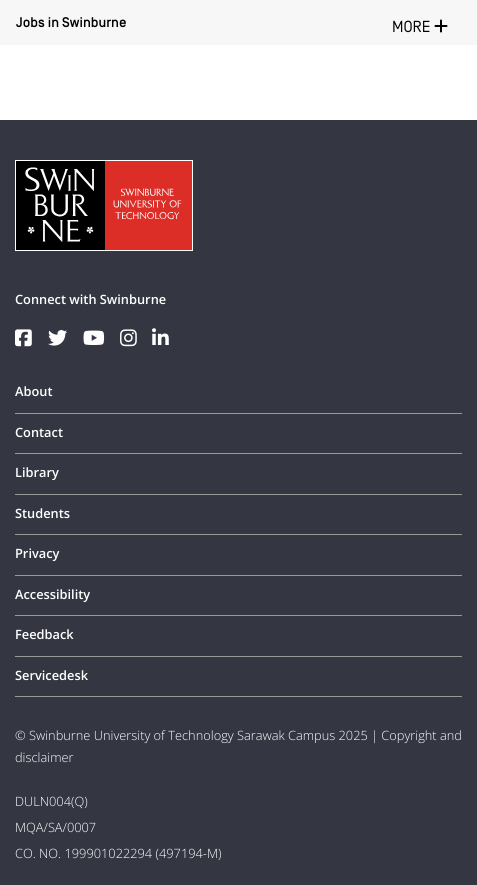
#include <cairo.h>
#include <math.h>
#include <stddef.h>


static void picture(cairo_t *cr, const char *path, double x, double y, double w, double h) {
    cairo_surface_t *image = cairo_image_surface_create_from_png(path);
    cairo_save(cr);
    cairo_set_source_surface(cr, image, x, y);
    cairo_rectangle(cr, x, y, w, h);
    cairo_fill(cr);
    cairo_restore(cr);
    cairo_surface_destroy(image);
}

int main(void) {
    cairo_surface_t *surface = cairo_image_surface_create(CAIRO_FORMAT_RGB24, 477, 885);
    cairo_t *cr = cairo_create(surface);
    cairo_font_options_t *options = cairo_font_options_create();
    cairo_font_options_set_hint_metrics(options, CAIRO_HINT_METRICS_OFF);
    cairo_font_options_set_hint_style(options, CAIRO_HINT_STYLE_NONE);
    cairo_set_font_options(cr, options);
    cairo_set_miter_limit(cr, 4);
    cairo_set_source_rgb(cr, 1, 1, 1);
    cairo_paint(cr);
    cairo_set_source_rgb(cr, 0.965, 0.965, 0.965);
    cairo_rectangle(cr, 0, 0, 477, 45);
    cairo_fill(cr);
    cairo_select_font_face(cr, "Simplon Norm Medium", CAIRO_FONT_SLANT_NORMAL, CAIRO_FONT_WEIGHT_NORMAL);
    cairo_set_font_size(cr, 14);
    cairo_set_source_rgb(cr, 0, 0, 0);
    cairo_move_to(cr, 16, 27);
    cairo_show_text(cr, "Jobs in Swinburne");
    cairo_select_font_face(cr, "Simplon Norm", CAIRO_FONT_SLANT_NORMAL, CAIRO_FONT_WEIGHT_NORMAL);
    cairo_set_font_size(cr, 16);
    cairo_move_to(cr, 392, 32);
    cairo_show_text(cr, "MORE");
    picture(cr, "img1.png", 434, 19, 14, 14);
    cairo_set_source_rgb(cr, 0.204, 0.212, 0.259);
    cairo_rectangle(cr, 0, 120, 477, 765);
    cairo_fill(cr);
    cairo_rectangle(cr, 15.5, 160.5, 177, 90);
    cairo_set_source_rgb(cr, 1, 1, 1);
    cairo_set_line_width(cr, 1);
    cairo_stroke(cr);
    picture(cr, "img2.png", 16, 161, 176, 89);
    cairo_select_font_face(cr, "Open Sans SemiBold", CAIRO_FONT_SLANT_NORMAL, CAIRO_FONT_WEIGHT_NORMAL);
    cairo_set_font_size(cr, 12.8);
    cairo_move_to(cr, 15, 304);
    cairo_show_text(cr, "Connect with Swinburne");
    picture(cr, "img3.png", 15, 329, 17, 18);
    picture(cr, "img4.png", 48, 330, 19, 16);
    picture(cr, "img5.png", 83, 330, 22, 15);
    picture(cr, "img6.png", 120, 329, 17, 18);
    picture(cr, "img7.png", 152, 328, 17, 17);
    cairo_set_source_rgb(cr, 0.6, 0.6, 0.6);
    cairo_rectangle(cr, 15, 413, 447, 1);
    cairo_fill(cr);
    cairo_set_source_rgb(cr, 1, 1, 1);
    cairo_move_to(cr, 15, 396);
    cairo_show_text(cr, "About");
    cairo_set_source_rgb(cr, 0.6, 0.6, 0.6);
    cairo_rectangle(cr, 15, 453, 447, 1);
    cairo_fill(cr);
    cairo_set_source_rgb(cr, 1, 1, 1);
    cairo_move_to(cr, 15, 437);
    cairo_show_text(cr, "Contact");
    cairo_set_source_rgb(cr, 0.6, 0.6, 0.6);
    cairo_rectangle(cr, 15, 494, 447, 1);
    cairo_fill(cr);
    cairo_set_source_rgb(cr, 1, 1, 1);
    cairo_move_to(cr, 15, 477);
    cairo_show_text(cr, "Library");
    cairo_set_source_rgb(cr, 0.6, 0.6, 0.6);
    cairo_rectangle(cr, 15, 534, 447, 1);
    cairo_fill(cr);
    cairo_set_source_rgb(cr, 1, 1, 1);
    cairo_move_to(cr, 15, 518);
    cairo_show_text(cr, "Students");
    cairo_set_source_rgb(cr, 0.6, 0.6, 0.6);
    cairo_rectangle(cr, 15, 575, 447, 1);
    cairo_fill(cr);
    cairo_set_source_rgb(cr, 1, 1, 1);
    cairo_move_to(cr, 15, 558);
    cairo_show_text(cr, "Privacy");
    cairo_set_source_rgb(cr, 0.6, 0.6, 0.6);
    cairo_rectangle(cr, 15, 615, 447, 1);
    cairo_fill(cr);
    cairo_set_source_rgb(cr, 1, 1, 1);
    cairo_move_to(cr, 15, 599);
    cairo_show_text(cr, "Accessibility");
    cairo_set_source_rgb(cr, 0.6, 0.6, 0.6);
    cairo_rectangle(cr, 15, 656, 447, 1);
    cairo_fill(cr);
    cairo_set_source_rgb(cr, 1, 1, 1);
    cairo_move_to(cr, 15, 639);
    cairo_show_text(cr, "Feedback");
    cairo_set_source_rgb(cr, 0.6, 0.6, 0.6);
    cairo_rectangle(cr, 15, 696, 447, 1);
    cairo_fill(cr);
    cairo_set_source_rgb(cr, 1, 1, 1);
    cairo_move_to(cr, 15, 680);
    cairo_show_text(cr, "Servicedesk");
    cairo_select_font_face(cr, "Open Sans Light", CAIRO_FONT_SLANT_NORMAL, CAIRO_FONT_WEIGHT_NORMAL);
    cairo_move_to(cr, 15, 740);
    cairo_show_text(cr, "© Swinburne University of Technology Sarawak Campus 2025 | Copyright and");
    cairo_move_to(cr, 15, 762);
    cairo_show_text(cr, "disclaimer");
    cairo_move_to(cr, 15, 806);
    cairo_show_text(cr, "DULN004(Q)");
    cairo_move_to(cr, 15, 832);
    cairo_show_text(cr, "MQA/SA/0007");
    cairo_move_to(cr, 15, 858);
    cairo_show_text(cr, "CO. NO. 199901022294 (497194-M)");
    cairo_surface_write_to_png(surface, "page.png");
    cairo_font_options_destroy(options);
    cairo_destroy(cr);
    cairo_surface_destroy(surface);
    return 0;
}
